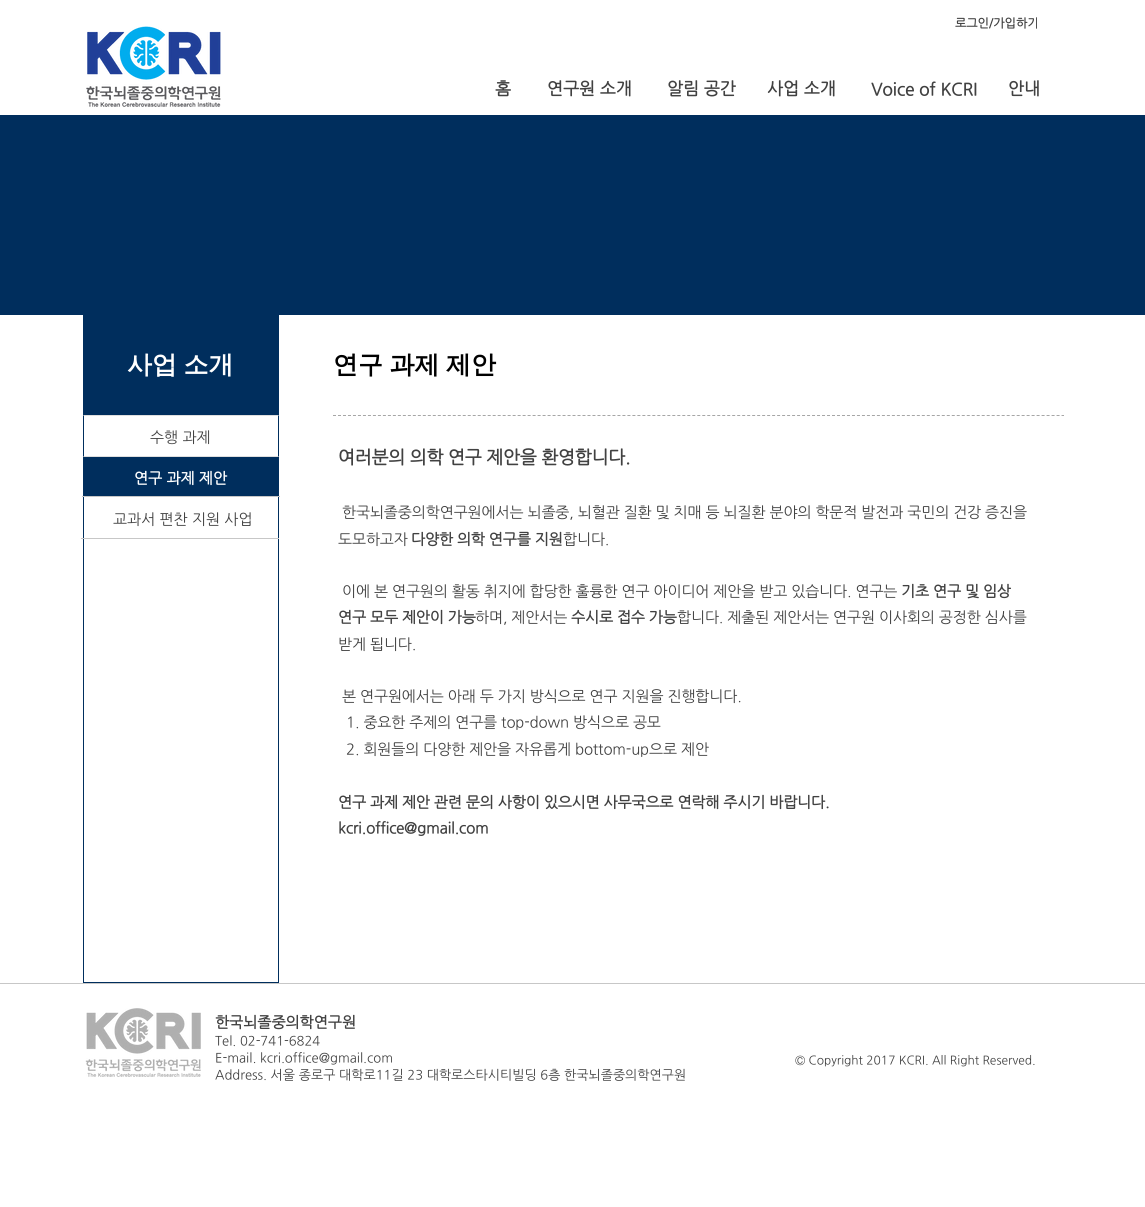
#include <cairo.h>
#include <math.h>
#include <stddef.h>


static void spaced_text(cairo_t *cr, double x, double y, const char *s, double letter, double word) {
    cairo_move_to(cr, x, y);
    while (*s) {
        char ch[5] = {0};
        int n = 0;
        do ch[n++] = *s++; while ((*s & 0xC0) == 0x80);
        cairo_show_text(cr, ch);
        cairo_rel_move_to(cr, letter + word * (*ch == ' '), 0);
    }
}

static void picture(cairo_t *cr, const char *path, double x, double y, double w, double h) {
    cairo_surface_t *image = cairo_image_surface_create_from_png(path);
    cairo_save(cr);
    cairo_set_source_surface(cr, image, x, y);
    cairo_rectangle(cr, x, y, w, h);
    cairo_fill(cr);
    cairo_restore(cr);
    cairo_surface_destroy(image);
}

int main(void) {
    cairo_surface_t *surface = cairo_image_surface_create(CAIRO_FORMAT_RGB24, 1145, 1207);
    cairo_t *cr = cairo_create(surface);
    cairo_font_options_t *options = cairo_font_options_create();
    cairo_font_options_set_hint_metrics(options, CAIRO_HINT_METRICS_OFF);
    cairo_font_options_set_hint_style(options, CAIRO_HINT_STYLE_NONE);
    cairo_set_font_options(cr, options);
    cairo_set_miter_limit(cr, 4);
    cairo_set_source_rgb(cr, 1, 1, 1);
    cairo_paint(cr);
    cairo_select_font_face(cr, "NanumGothic", CAIRO_FONT_SLANT_NORMAL, CAIRO_FONT_WEIGHT_BOLD);
    cairo_set_font_size(cr, 12);
    cairo_set_source_rgb(cr, 0.255, 0.255, 0.255);
    cairo_move_to(cr, 955, 27);
    cairo_show_text(cr, "로그인/가입하기");
    picture(cr, "img1.png", 86, 26, 135, 81);
    cairo_set_font_size(cr, 17);
    cairo_move_to(cr, 495, 94);
    cairo_show_text(cr, "홈");
    cairo_move_to(cr, 547, 94);
    cairo_show_text(cr, "연구원 소개");
    cairo_move_to(cr, 667, 94);
    cairo_show_text(cr, "알림 공간");
    cairo_move_to(cr, 767, 94);
    cairo_show_text(cr, "사업 소개");
    cairo_move_to(cr, 871, 95);
    cairo_show_text(cr, "Voice of KCRI");
    cairo_move_to(cr, 1008, 94);
    cairo_show_text(cr, "안내");
    cairo_set_source_rgb(cr, 0, 0.18, 0.365);
    cairo_rectangle(cr, 0, 115, 1145, 200);
    cairo_fill(cr);
    cairo_rectangle(cr, 83.5, 315.5, 195, 667);
    cairo_set_line_width(cr, 1);
    cairo_stroke(cr);
    cairo_rectangle(cr, 84, 316, 194, 99);
    cairo_fill(cr);
    cairo_select_font_face(cr, "WenQuanYi Zen Hei", CAIRO_FONT_SLANT_NORMAL, CAIRO_FONT_WEIGHT_BOLD);
    cairo_set_font_size(cr, 25);
    cairo_set_source_rgb(cr, 1, 1, 1);
    spaced_text(cr, 127, 373, "사업 소개", 0, -1);
    cairo_set_source_rgba(cr, 0.78, 0.78, 0.78, 0.57);
    cairo_rectangle(cr, 83, 415, 196, 1);
    cairo_fill(cr);
    cairo_select_font_face(cr, "NanumGothic", CAIRO_FONT_SLANT_NORMAL, CAIRO_FONT_WEIGHT_NORMAL);
    cairo_set_font_size(cr, 15);
    cairo_set_source_rgb(cr, 0.255, 0.255, 0.255);
    cairo_move_to(cr, 150, 442);
    cairo_show_text(cr, "수행 과제");
    cairo_set_source_rgba(cr, 0.78, 0.78, 0.78, 0.57);
    cairo_rectangle(cr, 83, 456, 196, 1);
    cairo_fill(cr);
    cairo_set_source_rgb(cr, 0, 0.18, 0.365);
    cairo_rectangle(cr, 84, 457, 194, 39);
    cairo_fill(cr);
    cairo_select_font_face(cr, "NanumGothic", CAIRO_FONT_SLANT_NORMAL, CAIRO_FONT_WEIGHT_BOLD);
    cairo_set_source_rgb(cr, 1, 1, 1);
    cairo_move_to(cr, 134, 483);
    cairo_show_text(cr, "연구 과제 제안");
    cairo_select_font_face(cr, "NanumGothic", CAIRO_FONT_SLANT_NORMAL, CAIRO_FONT_WEIGHT_NORMAL);
    cairo_set_source_rgb(cr, 0.255, 0.255, 0.255);
    cairo_move_to(cr, 113, 524);
    cairo_show_text(cr, "교과서 편찬 지원 사업");
    cairo_select_font_face(cr, "WenQuanYi Zen Hei", CAIRO_FONT_SLANT_NORMAL, CAIRO_FONT_WEIGHT_BOLD);
    cairo_set_font_size(cr, 25);
    cairo_set_source_rgb(cr, 0, 0, 0);
    spaced_text(cr, 333, 373, "연구 과제 제안", 0, -1);
    cairo_new_path(cr);
    cairo_move_to(cr, 333, 415.5);
    cairo_line_to(cr, 1064, 415.5);
    cairo_set_source_rgb(cr, 0.651, 0.651, 0.651);
    cairo_set_dash(cr, (double[]){3, 1.99}, 2, 0);
    cairo_stroke(cr);
    cairo_set_source_rgb(cr, 0.78, 0.78, 0.78);
    cairo_rectangle(cr, 82, 496, 198, 1);
    cairo_fill(cr);
    cairo_select_font_face(cr, "NanumGothic", CAIRO_FONT_SLANT_NORMAL, CAIRO_FONT_WEIGHT_BOLD);
    cairo_set_font_size(cr, 18);
    cairo_set_source_rgb(cr, 0.255, 0.255, 0.255);
    spaced_text(cr, 338, 463, "여러분의 의학 연구 제안을 환영합니다.", -0.2, 0);
    cairo_select_font_face(cr, "NanumGothic", CAIRO_FONT_SLANT_NORMAL, CAIRO_FONT_WEIGHT_NORMAL);
    cairo_set_font_size(cr, 15);
    spaced_text(cr, 342, 517, "한국뇌졸중의학연구원에서는 뇌졸중, 뇌혈관 질환 및 치매 등 뇌질환 분야의 학문적 발전과 국민의 건강 증진을", -0.15, 0);
    spaced_text(cr, 338, 544, "도모하고자", -0.15, 0);
    cairo_select_font_face(cr, "NanumGothic", CAIRO_FONT_SLANT_NORMAL, CAIRO_FONT_WEIGHT_BOLD);
    spaced_text(cr, 411, 544, "다양한 의학 연구를 지원", -0.15, 0);
    cairo_select_font_face(cr, "NanumGothic", CAIRO_FONT_SLANT_NORMAL, CAIRO_FONT_WEIGHT_NORMAL);
    spaced_text(cr, 563, 544, "합니다.", -0.15, 0);
    spaced_text(cr, 342, 596, "이에 본 연구원의 활동 취지에 합당한 훌륭한 연구 아이디어 제안을 받고 있습니다. 연구는", -0.15, 0);
    cairo_select_font_face(cr, "NanumGothic", CAIRO_FONT_SLANT_NORMAL, CAIRO_FONT_WEIGHT_BOLD);
    spaced_text(cr, 901, 596, "기초 연구 및 임상", -0.15, 0);
    spaced_text(cr, 338, 622, "연구 모두 제안이 가능", -0.15, 0);
    cairo_select_font_face(cr, "NanumGothic", CAIRO_FONT_SLANT_NORMAL, CAIRO_FONT_WEIGHT_NORMAL);
    spaced_text(cr, 475, 622, "하며, 제안서는", -0.15, 0);
    cairo_select_font_face(cr, "NanumGothic", CAIRO_FONT_SLANT_NORMAL, CAIRO_FONT_WEIGHT_BOLD);
    spaced_text(cr, 571, 622, "수시로 접수 가능", -0.15, 0);
    cairo_select_font_face(cr, "NanumGothic", CAIRO_FONT_SLANT_NORMAL, CAIRO_FONT_WEIGHT_NORMAL);
    spaced_text(cr, 677, 622, "합니다. 제출된 제안서는 연구원 이사회의 공정한 심사를", -0.15, 0);
    spaced_text(cr, 338, 649, "받게 됩니다.", -0.15, 0);
    spaced_text(cr, 342, 701, "본 연구원에서는 아래 두 가지 방식으로 연구 지원을 진행합니다.", -0.15, 0);
    spaced_text(cr, 346, 727, "1. 중요한 주제의 연구를 top-down 방식으로 공모", -0.15, 0);
    spaced_text(cr, 346, 754, "2. 회원들의 다양한 제안을 자유롭게 bottom-up으로 제안", -0.15, 0);
    cairo_select_font_face(cr, "NanumGothic", CAIRO_FONT_SLANT_NORMAL, CAIRO_FONT_WEIGHT_BOLD);
    spaced_text(cr, 338, 807, "연구 과제 제안 관련 문의 사항이 있으시면 사무국으로 연락해 주시기 바랍니다.", -0.15, 0);
    spaced_text(cr, 338, 833, "kcri.office@gmail.com", -0.15, 0);
    cairo_set_source_rgb(cr, 0.78, 0.78, 0.78);
    cairo_rectangle(cr, 81, 538, 198, 1);
    cairo_fill(cr);
    cairo_rectangle(cr, 0, 983, 1145, 1);
    cairo_fill(cr);
    picture(cr, "img2.png", 85, 1008, 116, 69);
    cairo_set_source_rgb(cr, 0.255, 0.255, 0.255);
    cairo_move_to(cr, 215, 1027);
    cairo_show_text(cr, "한국뇌졸중의학연구원");
    cairo_select_font_face(cr, "NanumGothic", CAIRO_FONT_SLANT_NORMAL, CAIRO_FONT_WEIGHT_NORMAL);
    cairo_set_font_size(cr, 13);
    cairo_move_to(cr, 215, 1045);
    cairo_show_text(cr, "Tel. 02-741-6824");
    cairo_move_to(cr, 215, 1062);
    cairo_show_text(cr, "E-mail. kcri.office@gmail.com");
    cairo_move_to(cr, 215, 1079);
    cairo_show_text(cr, "Address. 서울 종로구 대학로11길 23 대학로스타시티빌딩 6층 한국뇌졸중의학연구원");
    cairo_set_font_size(cr, 12);
    cairo_move_to(cr, 795, 1064);
    cairo_show_text(cr, "© Copyright 2017 KCRI. All Right Reserved.");
    cairo_surface_write_to_png(surface, "page.png");
    cairo_font_options_destroy(options);
    cairo_destroy(cr);
    cairo_surface_destroy(surface);
    return 0;
}
